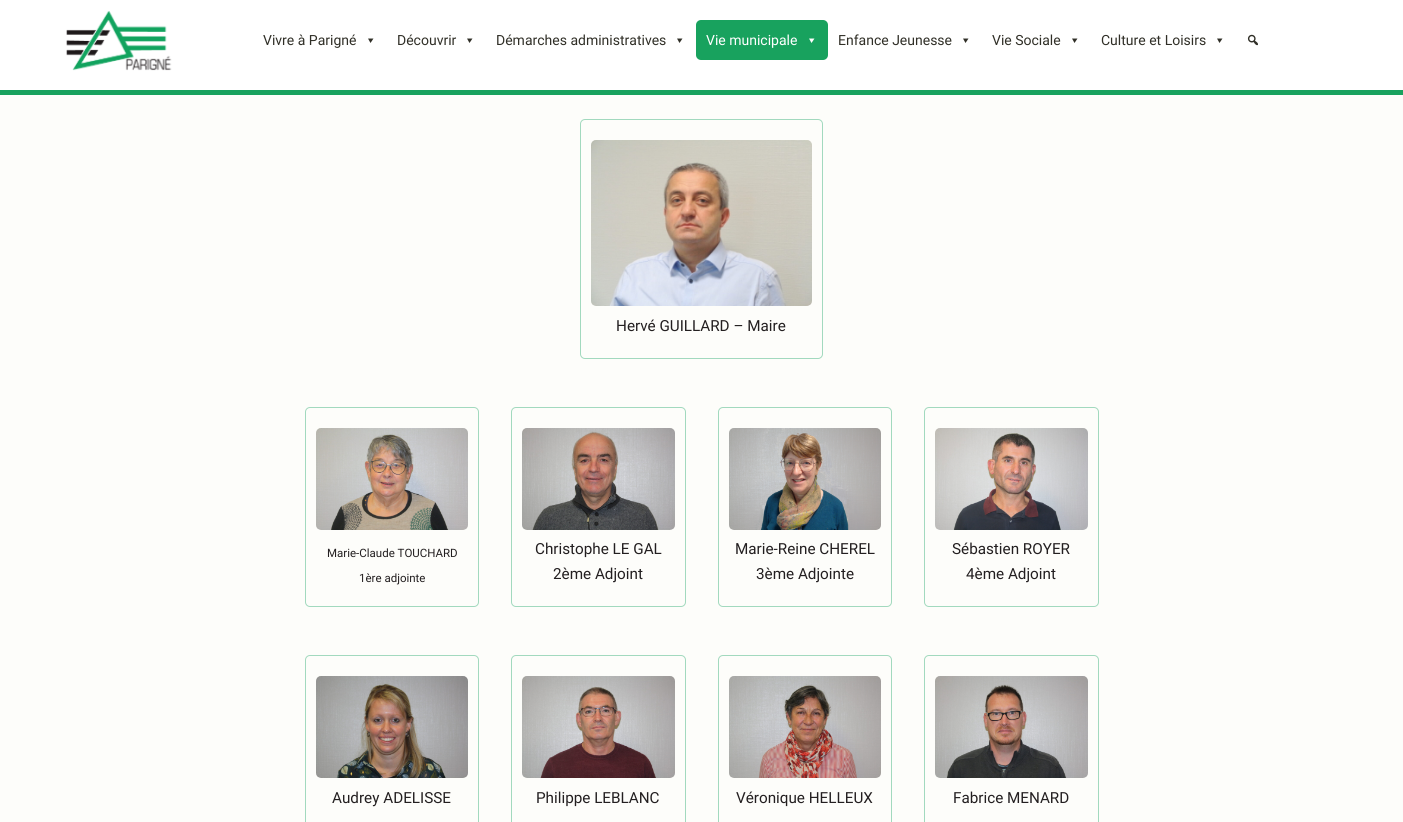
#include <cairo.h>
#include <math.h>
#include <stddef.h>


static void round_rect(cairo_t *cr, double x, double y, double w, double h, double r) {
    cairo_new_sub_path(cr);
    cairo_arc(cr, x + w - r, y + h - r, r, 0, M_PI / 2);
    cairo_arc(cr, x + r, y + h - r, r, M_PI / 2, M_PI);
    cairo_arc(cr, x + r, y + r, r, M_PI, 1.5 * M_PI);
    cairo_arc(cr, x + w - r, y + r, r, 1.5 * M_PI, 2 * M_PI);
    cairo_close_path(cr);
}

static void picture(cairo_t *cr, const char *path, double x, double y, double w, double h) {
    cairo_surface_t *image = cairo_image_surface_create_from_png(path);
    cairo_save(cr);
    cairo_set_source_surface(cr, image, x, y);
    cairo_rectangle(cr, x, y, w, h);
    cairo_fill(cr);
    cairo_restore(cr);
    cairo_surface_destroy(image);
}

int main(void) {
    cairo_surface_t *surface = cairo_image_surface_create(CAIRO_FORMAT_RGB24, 1403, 822);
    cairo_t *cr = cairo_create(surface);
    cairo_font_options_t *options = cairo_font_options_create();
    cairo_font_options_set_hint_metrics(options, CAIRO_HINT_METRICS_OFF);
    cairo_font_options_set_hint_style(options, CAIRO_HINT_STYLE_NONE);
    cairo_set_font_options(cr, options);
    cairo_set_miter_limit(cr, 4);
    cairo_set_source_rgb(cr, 0.992, 0.992, 0.98);
    cairo_paint(cr);
    cairo_set_source_rgb(cr, 1, 1, 1);
    cairo_rectangle(cr, 0, 0, 1403, 90);
    cairo_fill(cr);
    cairo_set_source_rgb(cr, 0.094, 0.635, 0.369);
    cairo_rectangle(cr, 0, 90, 1403, 5);
    cairo_fill(cr);
    picture(cr, "img1.png", 66, 10, 106, 61);
    cairo_select_font_face(cr, "Roboto", CAIRO_FONT_SLANT_NORMAL, CAIRO_FONT_WEIGHT_NORMAL);
    cairo_set_font_size(cr, 14);
    cairo_set_source_rgb(cr, 0.188, 0.184, 0.153);
    cairo_move_to(cr, 263, 45);
    cairo_show_text(cr, "Vivre à Parigné");
    cairo_new_path(cr);
    cairo_move_to(cr, 373.5, 38.5);
    cairo_line_to(cr, 370.5, 43);
    cairo_line_to(cr, 368, 38.5);
    cairo_close_path(cr);
    cairo_fill(cr);
    cairo_move_to(cr, 397, 45);
    cairo_show_text(cr, "Découvrir");
    cairo_new_path(cr);
    cairo_move_to(cr, 472.5, 38.5);
    cairo_line_to(cr, 469.5, 43);
    cairo_line_to(cr, 467, 38.5);
    cairo_close_path(cr);
    cairo_fill(cr);
    cairo_move_to(cr, 496, 45);
    cairo_show_text(cr, "Démarches administratives");
    cairo_new_path(cr);
    cairo_move_to(cr, 682.5, 38.5);
    cairo_line_to(cr, 679.5, 43);
    cairo_line_to(cr, 677, 38.5);
    cairo_close_path(cr);
    cairo_fill(cr);
    cairo_set_source_rgb(cr, 0.094, 0.635, 0.369);
    round_rect(cr, 696, 20, 132, 40, 5);
    cairo_fill(cr);
    cairo_set_source_rgb(cr, 1, 1, 1);
    cairo_move_to(cr, 706, 45);
    cairo_show_text(cr, "Vie municipale");
    cairo_new_path(cr);
    cairo_move_to(cr, 814.5, 38.5);
    cairo_line_to(cr, 811.5, 43);
    cairo_line_to(cr, 809, 38.5);
    cairo_close_path(cr);
    cairo_fill(cr);
    cairo_set_source_rgb(cr, 0.188, 0.184, 0.153);
    cairo_move_to(cr, 838, 45);
    cairo_show_text(cr, "Enfance Jeunesse");
    cairo_new_path(cr);
    cairo_move_to(cr, 968.5, 38.5);
    cairo_line_to(cr, 965.5, 43);
    cairo_line_to(cr, 963, 38.5);
    cairo_close_path(cr);
    cairo_fill(cr);
    cairo_move_to(cr, 992, 45);
    cairo_show_text(cr, "Vie Sociale");
    cairo_new_path(cr);
    cairo_move_to(cr, 1077.5, 38.5);
    cairo_line_to(cr, 1074.5, 43);
    cairo_line_to(cr, 1072, 38.5);
    cairo_close_path(cr);
    cairo_fill(cr);
    cairo_move_to(cr, 1101, 45);
    cairo_show_text(cr, "Culture et Loisirs");
    cairo_new_path(cr);
    cairo_move_to(cr, 1222.5, 38.5);
    cairo_line_to(cr, 1219.5, 43);
    cairo_line_to(cr, 1217, 38.5);
    cairo_close_path(cr);
    cairo_fill(cr);
    picture(cr, "img2.png", 1247, 34, 11, 12);
    round_rect(cr, 580.5, 119.5, 242, 239, 4.5);
    cairo_set_source_rgb(cr, 0.635, 0.851, 0.745);
    cairo_set_line_width(cr, 1);
    cairo_stroke(cr);
    picture(cr, "img3.png", 591, 140, 221, 166);
    cairo_set_font_size(cr, 15.25);
    cairo_set_source_rgb(cr, 0.137, 0.122, 0.125);
    cairo_move_to(cr, 616, 331);
    cairo_show_text(cr, "Hervé GUILLARD – Maire");
    round_rect(cr, 305.5, 407.5, 173, 199, 4.5);
    cairo_set_source_rgb(cr, 0.635, 0.851, 0.745);
    cairo_stroke(cr);
    picture(cr, "img4.png", 316, 428, 152, 102);
    cairo_set_font_size(cr, 11.5);
    cairo_set_source_rgb(cr, 0.137, 0.122, 0.125);
    cairo_move_to(cr, 327, 557);
    cairo_show_text(cr, "Marie-Claude TOUCHARD");
    cairo_move_to(cr, 359, 582);
    cairo_show_text(cr, "1ère adjointe");
    round_rect(cr, 511.5, 407.5, 174, 199, 4.5);
    cairo_set_source_rgb(cr, 0.635, 0.851, 0.745);
    cairo_stroke(cr);
    picture(cr, "img5.png", 522, 428, 153, 102);
    cairo_set_font_size(cr, 15.25);
    cairo_set_source_rgb(cr, 0.137, 0.122, 0.125);
    cairo_move_to(cr, 535, 554);
    cairo_show_text(cr, "Christophe LE GAL");
    cairo_move_to(cr, 553, 579);
    cairo_show_text(cr, "2ème Adjoint");
    round_rect(cr, 718.5, 407.5, 173, 199, 4.5);
    cairo_set_source_rgb(cr, 0.635, 0.851, 0.745);
    cairo_stroke(cr);
    picture(cr, "img6.png", 729, 428, 152, 102);
    cairo_set_source_rgb(cr, 0.137, 0.122, 0.125);
    cairo_move_to(cr, 735, 554);
    cairo_show_text(cr, "Marie-Reine CHEREL");
    cairo_move_to(cr, 756, 579);
    cairo_show_text(cr, "3ème Adjointe");
    round_rect(cr, 924.5, 407.5, 174, 199, 4.5);
    cairo_set_source_rgb(cr, 0.635, 0.851, 0.745);
    cairo_stroke(cr);
    picture(cr, "img7.png", 935, 428, 153, 102);
    cairo_set_source_rgb(cr, 0.137, 0.122, 0.125);
    cairo_move_to(cr, 952, 554);
    cairo_show_text(cr, "Sébastien ROYER");
    cairo_move_to(cr, 966, 579);
    cairo_show_text(cr, "4ème Adjoint");
    round_rect(cr, 305.5, 655.5, 173, 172, 4.5);
    cairo_set_source_rgb(cr, 0.635, 0.851, 0.745);
    cairo_stroke(cr);
    picture(cr, "img8.png", 316, 676, 152, 102);
    cairo_set_source_rgb(cr, 0.137, 0.122, 0.125);
    cairo_move_to(cr, 332, 803);
    cairo_show_text(cr, "Audrey ADELISSE");
    round_rect(cr, 511.5, 655.5, 174, 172, 4.5);
    cairo_set_source_rgb(cr, 0.635, 0.851, 0.745);
    cairo_stroke(cr);
    picture(cr, "img9.png", 522, 676, 153, 102);
    cairo_set_source_rgb(cr, 0.137, 0.122, 0.125);
    cairo_move_to(cr, 536, 803);
    cairo_show_text(cr, "Philippe LEBLANC");
    round_rect(cr, 718.5, 655.5, 173, 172, 4.5);
    cairo_set_source_rgb(cr, 0.635, 0.851, 0.745);
    cairo_stroke(cr);
    picture(cr, "img10.png", 729, 676, 152, 102);
    cairo_set_source_rgb(cr, 0.137, 0.122, 0.125);
    cairo_move_to(cr, 736, 803);
    cairo_show_text(cr, "Véronique HELLEUX");
    round_rect(cr, 924.5, 655.5, 174, 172, 4.5);
    cairo_set_source_rgb(cr, 0.635, 0.851, 0.745);
    cairo_stroke(cr);
    picture(cr, "img11.png", 935, 676, 153, 102);
    cairo_set_source_rgb(cr, 0.137, 0.122, 0.125);
    cairo_move_to(cr, 953, 803);
    cairo_show_text(cr, "Fabrice MENARD");
    cairo_surface_write_to_png(surface, "page.png");
    cairo_font_options_destroy(options);
    cairo_destroy(cr);
    cairo_surface_destroy(surface);
    return 0;
}
